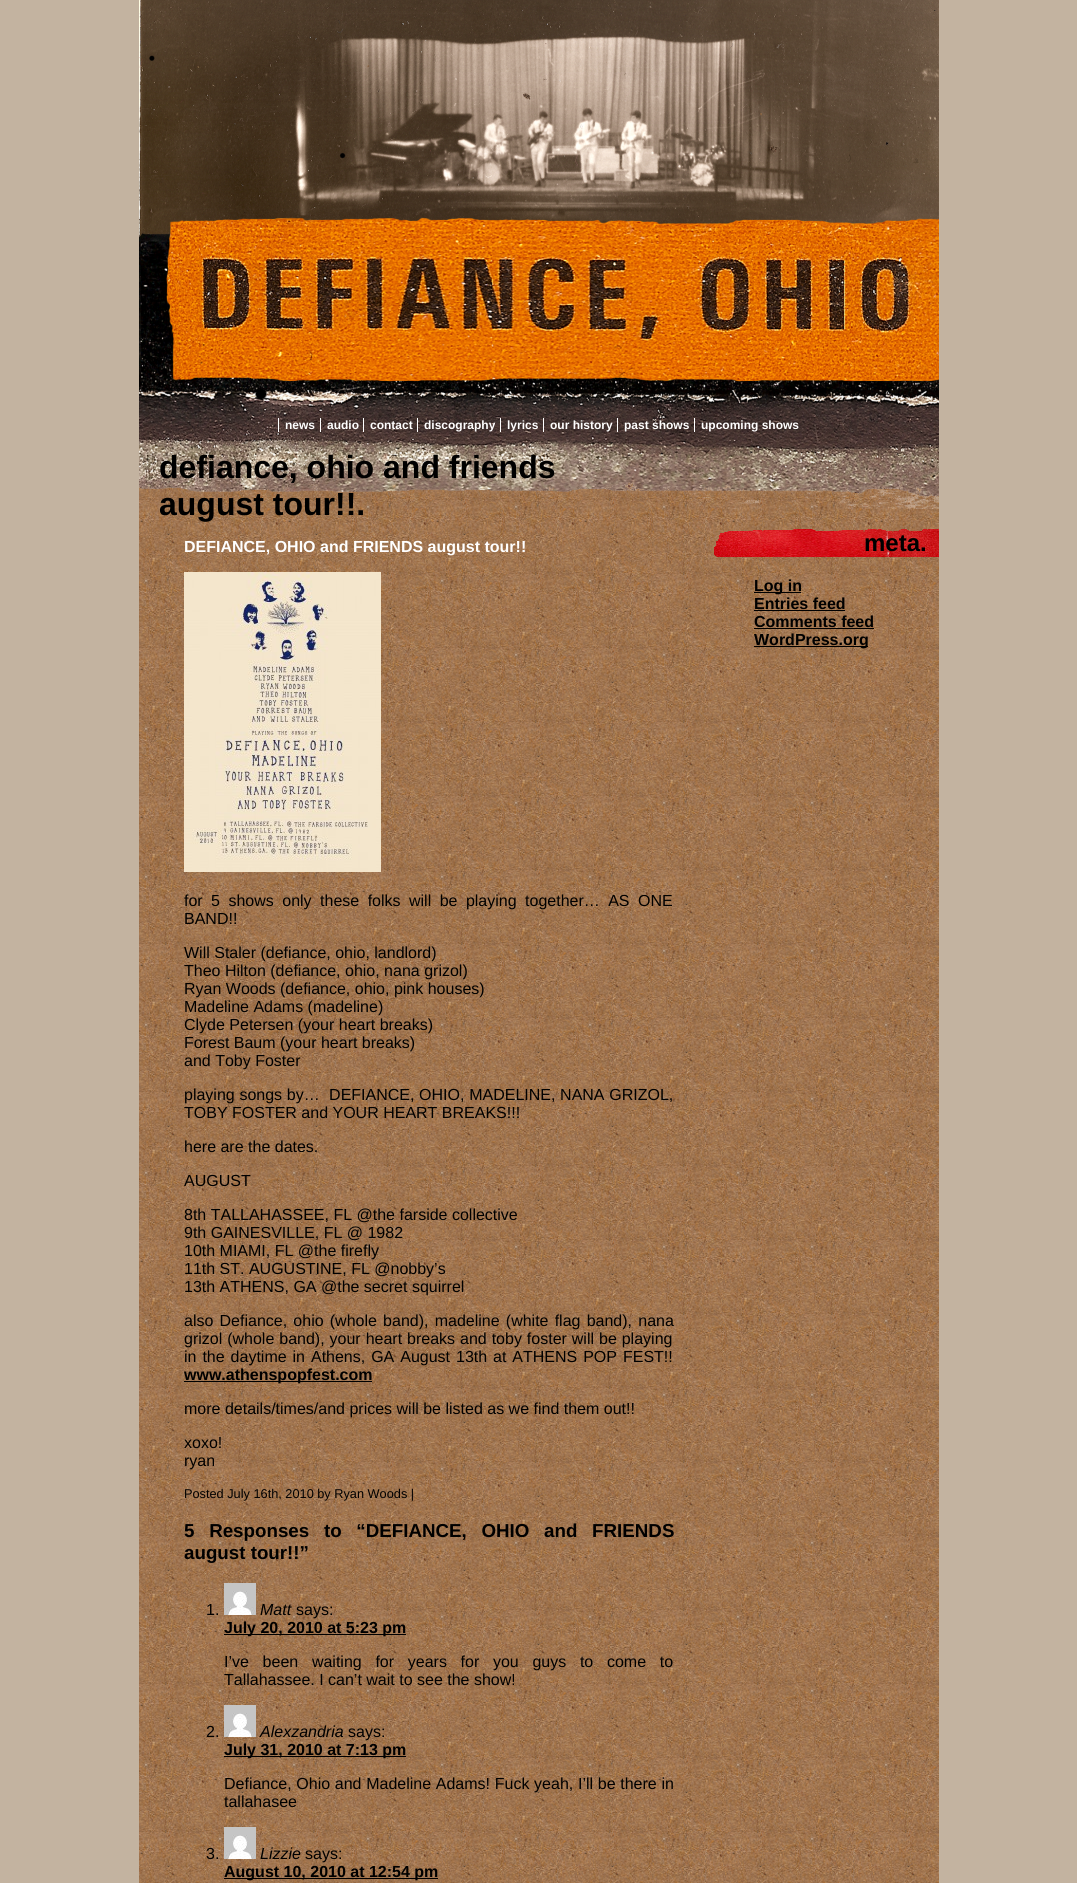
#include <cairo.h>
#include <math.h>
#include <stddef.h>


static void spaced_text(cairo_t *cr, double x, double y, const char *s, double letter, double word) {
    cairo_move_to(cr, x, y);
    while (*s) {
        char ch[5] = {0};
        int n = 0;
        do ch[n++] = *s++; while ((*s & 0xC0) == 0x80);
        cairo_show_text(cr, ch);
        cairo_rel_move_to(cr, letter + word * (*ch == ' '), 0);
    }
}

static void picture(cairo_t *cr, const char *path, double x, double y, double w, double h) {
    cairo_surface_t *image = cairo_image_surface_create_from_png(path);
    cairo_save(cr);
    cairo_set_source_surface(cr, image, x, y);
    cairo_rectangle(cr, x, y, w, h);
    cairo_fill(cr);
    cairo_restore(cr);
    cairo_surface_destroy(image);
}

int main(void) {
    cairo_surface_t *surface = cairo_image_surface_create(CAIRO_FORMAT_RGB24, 1077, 1883);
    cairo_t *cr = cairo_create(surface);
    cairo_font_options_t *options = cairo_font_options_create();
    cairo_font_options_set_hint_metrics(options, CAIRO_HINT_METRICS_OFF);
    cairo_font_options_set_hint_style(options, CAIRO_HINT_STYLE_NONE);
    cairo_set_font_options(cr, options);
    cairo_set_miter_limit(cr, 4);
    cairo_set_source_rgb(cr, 0.765, 0.702, 0.627);
    cairo_paint(cr);
    picture(cr, "img1.png", 139, 481, 800, 1402);
    picture(cr, "img2.png", 139, 0, 800, 509);
    cairo_select_font_face(cr, "Liberation Sans", CAIRO_FONT_SLANT_NORMAL, CAIRO_FONT_WEIGHT_BOLD);
    cairo_set_font_size(cr, 12);
    cairo_set_source_rgb(cr, 1, 1, 1);
    cairo_move_to(cr, 285, 429);
    cairo_show_text(cr, "news");
    cairo_rectangle(cr, 278, 418, 1, 14);
    cairo_fill(cr);
    cairo_move_to(cr, 327, 429);
    cairo_show_text(cr, "audio");
    cairo_rectangle(cr, 320, 418, 1, 14);
    cairo_fill(cr);
    cairo_rectangle(cr, 363, 418, 1, 14);
    cairo_fill(cr);
    cairo_move_to(cr, 370, 429);
    cairo_show_text(cr, "contact");
    cairo_rectangle(cr, 417, 418, 1, 14);
    cairo_fill(cr);
    cairo_move_to(cr, 424, 429);
    cairo_show_text(cr, "discography");
    cairo_rectangle(cr, 500, 418, 1, 14);
    cairo_fill(cr);
    cairo_move_to(cr, 507, 429);
    cairo_show_text(cr, "lyrics");
    cairo_rectangle(cr, 543, 418, 1, 14);
    cairo_fill(cr);
    cairo_move_to(cr, 550, 429);
    cairo_show_text(cr, "our history");
    cairo_rectangle(cr, 617, 418, 1, 14);
    cairo_fill(cr);
    cairo_move_to(cr, 624, 429);
    cairo_show_text(cr, "past shows");
    cairo_rectangle(cr, 694, 418, 1, 14);
    cairo_fill(cr);
    cairo_move_to(cr, 701, 429);
    cairo_show_text(cr, "upcoming shows");
    cairo_set_font_size(cr, 32);
    cairo_set_source_rgb(cr, 0, 0, 0);
    cairo_move_to(cr, 159, 478);
    cairo_show_text(cr, "defiance, ohio and friends");
    cairo_move_to(cr, 159, 515);
    cairo_show_text(cr, "august tour!!.");
    cairo_set_font_size(cr, 16);
    cairo_set_source_rgb(cr, 1, 1, 1);
    cairo_move_to(cr, 184, 552);
    cairo_show_text(cr, "DEFIANCE, OHIO and FRIENDS august tour!!");
    picture(cr, "img3.png", 184, 572, 197, 300);
    cairo_select_font_face(cr, "Liberation Sans", CAIRO_FONT_SLANT_NORMAL, CAIRO_FONT_WEIGHT_NORMAL);
    cairo_set_source_rgb(cr, 0, 0, 0);
    spaced_text(cr, 184, 906, "for 5 shows only these folks will be playing together… AS ONE", 0, 4);
    cairo_move_to(cr, 184, 924);
    cairo_show_text(cr, "BAND!!");
    cairo_move_to(cr, 184, 958);
    cairo_show_text(cr, "Will Staler (defiance, ohio, landlord)");
    cairo_move_to(cr, 184, 976);
    cairo_show_text(cr, "Theo Hilton (defiance, ohio, nana grizol)");
    cairo_move_to(cr, 184, 994);
    cairo_show_text(cr, "Ryan Woods (defiance, ohio, pink houses)");
    cairo_move_to(cr, 184, 1012);
    cairo_show_text(cr, "Madeline Adams (madeline)");
    cairo_move_to(cr, 184, 1030);
    cairo_show_text(cr, "Clyde Petersen (your heart breaks)");
    cairo_move_to(cr, 184, 1048);
    cairo_show_text(cr, "Forest Baum (your heart breaks)");
    cairo_move_to(cr, 184, 1066);
    cairo_show_text(cr, "and Toby Foster");
    spaced_text(cr, 184, 1100, "playing songs by…  DEFIANCE, OHIO, MADELINE, NANA GRIZOL,", 0, 0.25);
    cairo_move_to(cr, 184, 1118);
    cairo_show_text(cr, "TOBY FOSTER and YOUR HEART BREAKS!!!");
    cairo_move_to(cr, 184, 1152);
    cairo_show_text(cr, "here are the dates.");
    cairo_move_to(cr, 184, 1186);
    cairo_show_text(cr, "AUGUST");
    cairo_move_to(cr, 184, 1220);
    cairo_show_text(cr, "8th TALLAHASSEE, FL @the farside collective");
    cairo_move_to(cr, 184, 1238);
    cairo_show_text(cr, "9th GAINESVILLE, FL @ 1982");
    cairo_move_to(cr, 184, 1256);
    cairo_show_text(cr, "10th MIAMI, FL @the firefly");
    cairo_move_to(cr, 184, 1274);
    cairo_show_text(cr, "11th ST. AUGUSTINE, FL @nobby’s");
    cairo_move_to(cr, 184, 1292);
    cairo_show_text(cr, "13th ATHENS, GA @the secret squirrel");
    spaced_text(cr, 184, 1326, "also Defiance, ohio (whole band), madeline (white flag band), nana", 0, 1.75);
    spaced_text(cr, 184, 1344, "grizol (whole band), your heart breaks and toby foster will be playing", 0, 0.5);
    spaced_text(cr, 184, 1362, "in the daytime in Athens, GA August 13th at ATHENS POP FEST!!", 0, 1.5);
    cairo_rectangle(cr, 184, 1381, 188, 1);
    cairo_fill(cr);
    cairo_select_font_face(cr, "Liberation Sans", CAIRO_FONT_SLANT_NORMAL, CAIRO_FONT_WEIGHT_BOLD);
    cairo_move_to(cr, 184, 1380);
    cairo_show_text(cr, "www.athenspopfest.com");
    cairo_select_font_face(cr, "Liberation Sans", CAIRO_FONT_SLANT_NORMAL, CAIRO_FONT_WEIGHT_NORMAL);
    cairo_move_to(cr, 184, 1414);
    cairo_show_text(cr, "more details/times/and prices will be listed as we find them out!!");
    cairo_move_to(cr, 184, 1448);
    cairo_show_text(cr, "xoxo!");
    cairo_move_to(cr, 184, 1466);
    cairo_show_text(cr, "ryan");
    cairo_set_font_size(cr, 12.75);
    cairo_move_to(cr, 184, 1498);
    cairo_show_text(cr, "Posted July 16th, 2010 by Ryan Woods |");
    cairo_select_font_face(cr, "Liberation Sans", CAIRO_FONT_SLANT_NORMAL, CAIRO_FONT_WEIGHT_BOLD);
    cairo_set_font_size(cr, 18.75);
    spaced_text(cr, 184, 1537, "5 Responses to “DEFIANCE, OHIO and FRIENDS", 0, 9.5);
    cairo_move_to(cr, 184, 1559);
    cairo_show_text(cr, "august tour!!”");
    cairo_select_font_face(cr, "Liberation Sans", CAIRO_FONT_SLANT_NORMAL, CAIRO_FONT_WEIGHT_NORMAL);
    cairo_set_font_size(cr, 16);
    cairo_move_to(cr, 206, 1615);
    cairo_show_text(cr, "1.");
    picture(cr, "img4.png", 224, 1583, 32, 32);
    cairo_select_font_face(cr, "Liberation Sans", CAIRO_FONT_SLANT_ITALIC, CAIRO_FONT_WEIGHT_NORMAL);
    cairo_move_to(cr, 260, 1615);
    cairo_show_text(cr, "Matt");
    cairo_select_font_face(cr, "Liberation Sans", CAIRO_FONT_SLANT_NORMAL, CAIRO_FONT_WEIGHT_NORMAL);
    cairo_move_to(cr, 296, 1615);
    cairo_show_text(cr, "says:");
    cairo_rectangle(cr, 224, 1634, 182, 1);
    cairo_fill(cr);
    cairo_select_font_face(cr, "Liberation Sans", CAIRO_FONT_SLANT_NORMAL, CAIRO_FONT_WEIGHT_BOLD);
    cairo_move_to(cr, 224, 1633);
    cairo_show_text(cr, "July 20, 2010 at 5:23 pm");
    cairo_select_font_face(cr, "Liberation Sans", CAIRO_FONT_SLANT_NORMAL, CAIRO_FONT_WEIGHT_NORMAL);
    spaced_text(cr, 224, 1667, "I’ve been waiting for years for you guys to come to", 0, 9.25);
    cairo_move_to(cr, 224, 1685);
    cairo_show_text(cr, "Tallahassee. I can’t wait to see the show!");
    cairo_move_to(cr, 206, 1737);
    cairo_show_text(cr, "2.");
    picture(cr, "img4.png", 224, 1705, 32, 32);
    cairo_select_font_face(cr, "Liberation Sans", CAIRO_FONT_SLANT_ITALIC, CAIRO_FONT_WEIGHT_NORMAL);
    cairo_move_to(cr, 260, 1737);
    cairo_show_text(cr, "Alexzandria");
    cairo_select_font_face(cr, "Liberation Sans", CAIRO_FONT_SLANT_NORMAL, CAIRO_FONT_WEIGHT_NORMAL);
    cairo_move_to(cr, 348, 1737);
    cairo_show_text(cr, "says:");
    cairo_rectangle(cr, 224, 1756, 182, 1);
    cairo_fill(cr);
    cairo_select_font_face(cr, "Liberation Sans", CAIRO_FONT_SLANT_NORMAL, CAIRO_FONT_WEIGHT_BOLD);
    cairo_move_to(cr, 224, 1755);
    cairo_show_text(cr, "July 31, 2010 at 7:13 pm");
    cairo_select_font_face(cr, "Liberation Sans", CAIRO_FONT_SLANT_NORMAL, CAIRO_FONT_WEIGHT_NORMAL);
    spaced_text(cr, 224, 1789, "Defiance, Ohio and Madeline Adams! Fuck yeah, I’ll be there in", 0, 0.25);
    cairo_move_to(cr, 224, 1807);
    cairo_show_text(cr, "tallahasee");
    cairo_move_to(cr, 206, 1859);
    cairo_show_text(cr, "3.");
    picture(cr, "img4.png", 224, 1827, 32, 32);
    cairo_select_font_face(cr, "Liberation Sans", CAIRO_FONT_SLANT_ITALIC, CAIRO_FONT_WEIGHT_NORMAL);
    cairo_move_to(cr, 260, 1859);
    cairo_show_text(cr, "Lizzie");
    cairo_select_font_face(cr, "Liberation Sans", CAIRO_FONT_SLANT_NORMAL, CAIRO_FONT_WEIGHT_NORMAL);
    cairo_move_to(cr, 305, 1859);
    cairo_show_text(cr, "says:");
    cairo_rectangle(cr, 224, 1878, 214, 1);
    cairo_fill(cr);
    cairo_select_font_face(cr, "Liberation Sans", CAIRO_FONT_SLANT_NORMAL, CAIRO_FONT_WEIGHT_BOLD);
    cairo_move_to(cr, 224, 1877);
    cairo_show_text(cr, "August 10, 2010 at 12:54 pm");
    picture(cr, "img5.png", 714, 529, 225, 28);
    cairo_set_font_size(cr, 24);
    cairo_move_to(cr, 864, 551);
    cairo_show_text(cr, "meta.");
    cairo_rectangle(cr, 754, 592, 47, 1);
    cairo_fill(cr);
    cairo_set_font_size(cr, 16);
    cairo_move_to(cr, 754, 591);
    cairo_show_text(cr, "Log in");
    cairo_move_to(cr, 754, 609);
    cairo_show_text(cr, "Entries feed");
    cairo_rectangle(cr, 754, 610, 91, 1);
    cairo_fill(cr);
    cairo_move_to(cr, 754, 627);
    cairo_show_text(cr, "Comments feed");
    cairo_rectangle(cr, 754, 628, 120, 1);
    cairo_fill(cr);
    cairo_rectangle(cr, 754, 646, 114, 1);
    cairo_fill(cr);
    cairo_move_to(cr, 754, 645);
    cairo_show_text(cr, "WordPress.org");
    cairo_surface_write_to_png(surface, "page.png");
    cairo_font_options_destroy(options);
    cairo_destroy(cr);
    cairo_surface_destroy(surface);
    return 0;
}
